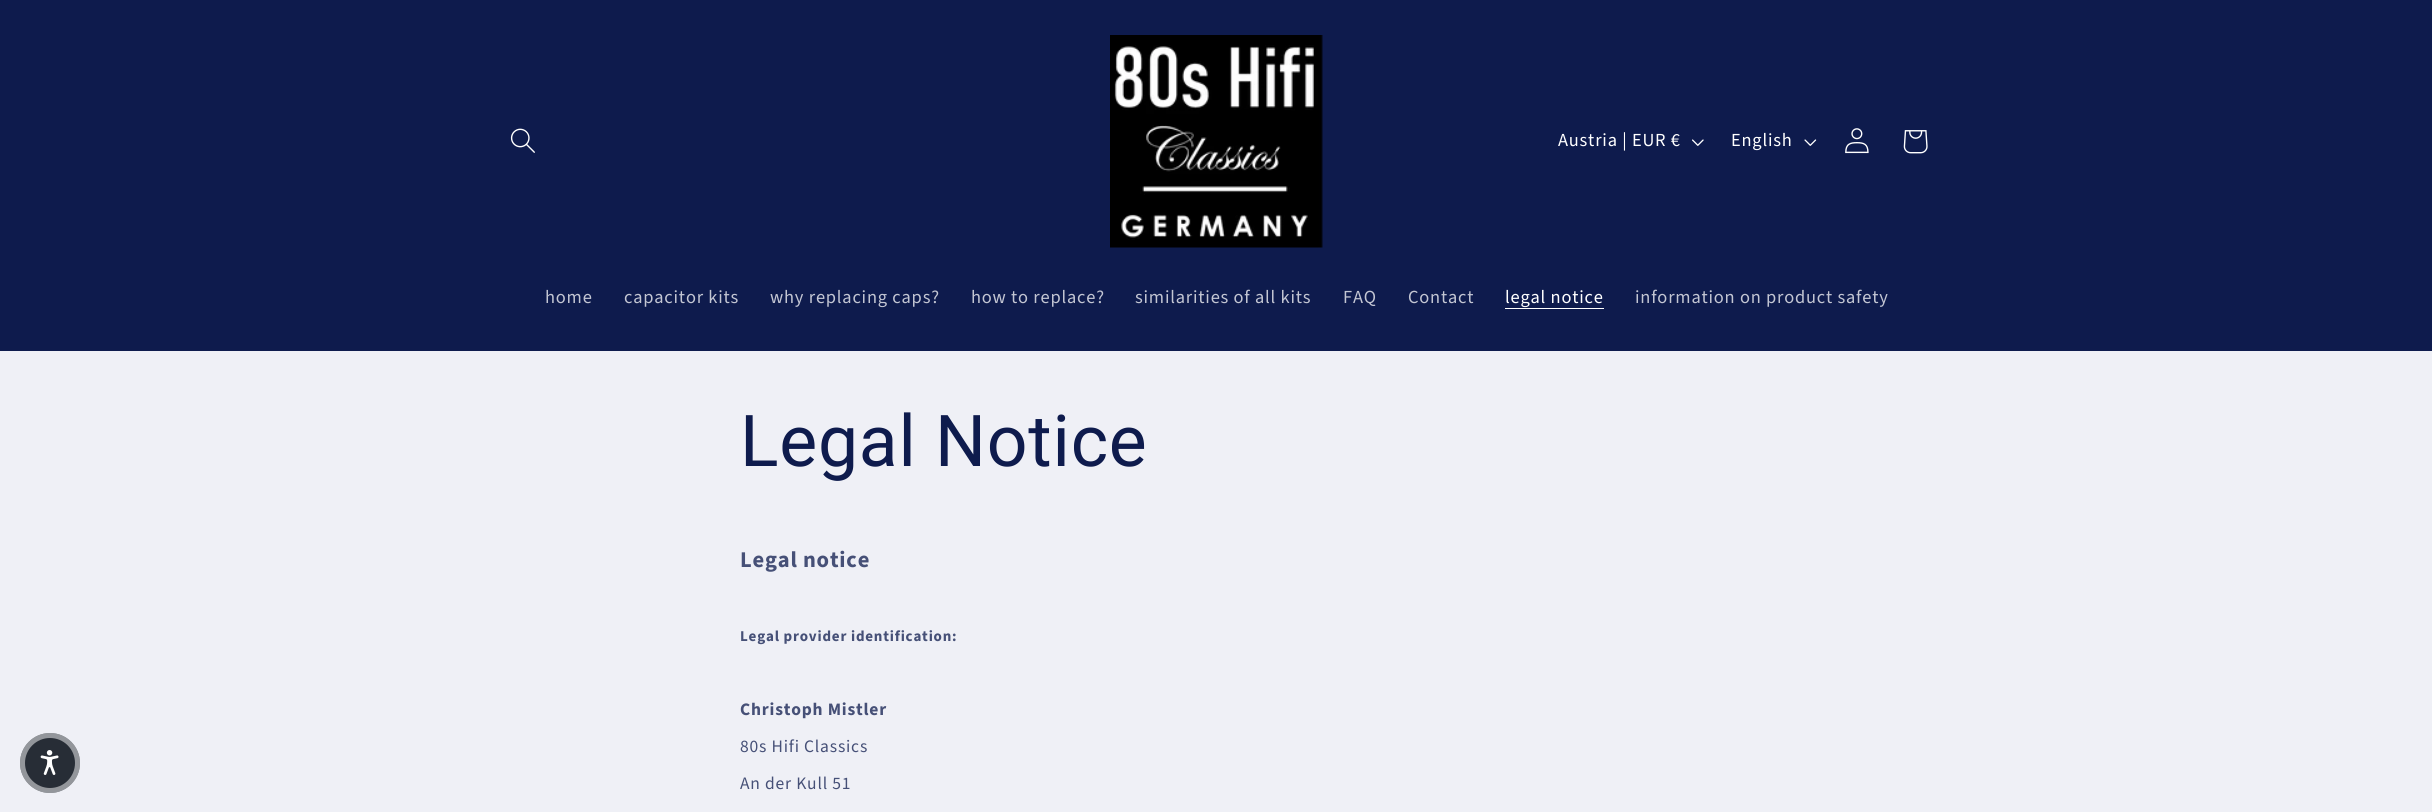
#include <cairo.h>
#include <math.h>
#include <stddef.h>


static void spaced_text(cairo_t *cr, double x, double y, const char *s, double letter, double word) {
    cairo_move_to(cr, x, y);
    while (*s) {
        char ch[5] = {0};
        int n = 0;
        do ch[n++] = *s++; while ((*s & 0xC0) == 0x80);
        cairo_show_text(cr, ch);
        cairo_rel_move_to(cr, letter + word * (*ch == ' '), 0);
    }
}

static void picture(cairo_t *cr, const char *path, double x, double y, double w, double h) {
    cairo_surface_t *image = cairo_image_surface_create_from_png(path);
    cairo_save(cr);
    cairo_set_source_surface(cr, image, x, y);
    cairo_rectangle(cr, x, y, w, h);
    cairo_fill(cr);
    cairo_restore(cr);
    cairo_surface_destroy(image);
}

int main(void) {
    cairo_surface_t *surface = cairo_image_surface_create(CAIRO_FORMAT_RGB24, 2432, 812);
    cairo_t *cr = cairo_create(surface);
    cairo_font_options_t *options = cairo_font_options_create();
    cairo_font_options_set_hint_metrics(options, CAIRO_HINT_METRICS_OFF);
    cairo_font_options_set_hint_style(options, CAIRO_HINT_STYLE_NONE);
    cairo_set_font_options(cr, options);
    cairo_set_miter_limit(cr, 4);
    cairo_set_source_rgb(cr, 0.937, 0.941, 0.961);
    cairo_paint(cr);
    cairo_set_source_rgb(cr, 0.055, 0.106, 0.302);
    cairo_rectangle(cr, 0, 0, 2432, 351);
    cairo_fill(cr);
    picture(cr, "img1.png", 510, 128, 25, 25);
    picture(cr, "img2.png", 1110, 35, 213, 213);
    cairo_select_font_face(cr, "Source Sans Pro", CAIRO_FONT_SLANT_NORMAL, CAIRO_FONT_WEIGHT_NORMAL);
    cairo_set_font_size(cr, 18.4);
    cairo_set_source_rgb(cr, 1, 1, 1);
    spaced_text(cr, 1558, 146, "Austria | EUR €", 0.8, 0);
    picture(cr, "img3.png", 1692, 139, 12, 7);
    spaced_text(cr, 1731, 146, "English", 0.8, 0);
    picture(cr, "img4.png", 1804, 139, 13, 7);
    picture(cr, "img5.png", 1845, 128, 24, 26);
    picture(cr, "img6.png", 1903, 130, 25, 24);
    cairo_set_source_rgb(cr, 0.765, 0.776, 0.827);
    spaced_text(cr, 545, 303, "home", 0.8, 0);
    spaced_text(cr, 624, 303, "capacitor kits", 0.8, 0);
    spaced_text(cr, 770, 303, "why replacing caps?", 0.8, 0);
    spaced_text(cr, 971, 303, "how to replace?", 0.8, 0);
    spaced_text(cr, 1135, 303, "similarities of all kits", 0.8, 0);
    spaced_text(cr, 1343, 303, "FAQ", 0.8, 0);
    spaced_text(cr, 1408, 303, "Contact", 0.8, 0);
    cairo_set_source_rgb(cr, 1, 1, 1);
    spaced_text(cr, 1505, 303, "legal notice", 0.8, 0);
    cairo_rectangle(cr, 1505, 308, 99, 1);
    cairo_fill(cr);
    cairo_set_source_rgb(cr, 0.765, 0.776, 0.827);
    spaced_text(cr, 1635, 303, "information on product safety", 0.8, 0);
    cairo_set_source_rgb(cr, 0.153, 0.176, 0.212);
    cairo_new_path(cr);
    cairo_arc(cr, 50, 763, 30, 0, 2 * M_PI);
    cairo_fill(cr);
    cairo_arc(cr, 50, 763, 27.5, 0, 2 * M_PI);
    cairo_set_source_rgba(cr, 1, 1, 1, 0.5);
    cairo_set_line_width(cr, 5);
    cairo_stroke(cr);
    picture(cr, "img7.png", 40, 750, 19, 25);
    cairo_select_font_face(cr, "Roboto", CAIRO_FONT_SLANT_NORMAL, CAIRO_FONT_WEIGHT_NORMAL);
    cairo_set_font_size(cr, 71.5);
    cairo_set_source_rgb(cr, 0.055, 0.106, 0.302);
    spaced_text(cr, 740, 466, "Legal Notice", 0.75, 0);
    cairo_select_font_face(cr, "Source Sans Pro", CAIRO_FONT_SLANT_NORMAL, CAIRO_FONT_WEIGHT_BOLD);
    cairo_set_font_size(cr, 22.5);
    cairo_set_source_rgb(cr, 0.275, 0.314, 0.467);
    spaced_text(cr, 740, 567, "Legal notice", 0.8, 0);
    cairo_set_font_size(cr, 15);
    spaced_text(cr, 740, 641, "Legal provider identification:", 0.8, 0);
    cairo_set_font_size(cr, 17.5);
    spaced_text(cr, 740, 715, "Christoph Mistler", 0.8, 0);
    cairo_select_font_face(cr, "Source Sans Pro", CAIRO_FONT_SLANT_NORMAL, CAIRO_FONT_WEIGHT_NORMAL);
    spaced_text(cr, 740, 752, "80s Hifi Classics", 0.8, 0);
    spaced_text(cr, 740, 789, "An der Kull 51", 0.8, 0);
    cairo_surface_write_to_png(surface, "page.png");
    cairo_font_options_destroy(options);
    cairo_destroy(cr);
    cairo_surface_destroy(surface);
    return 0;
}
